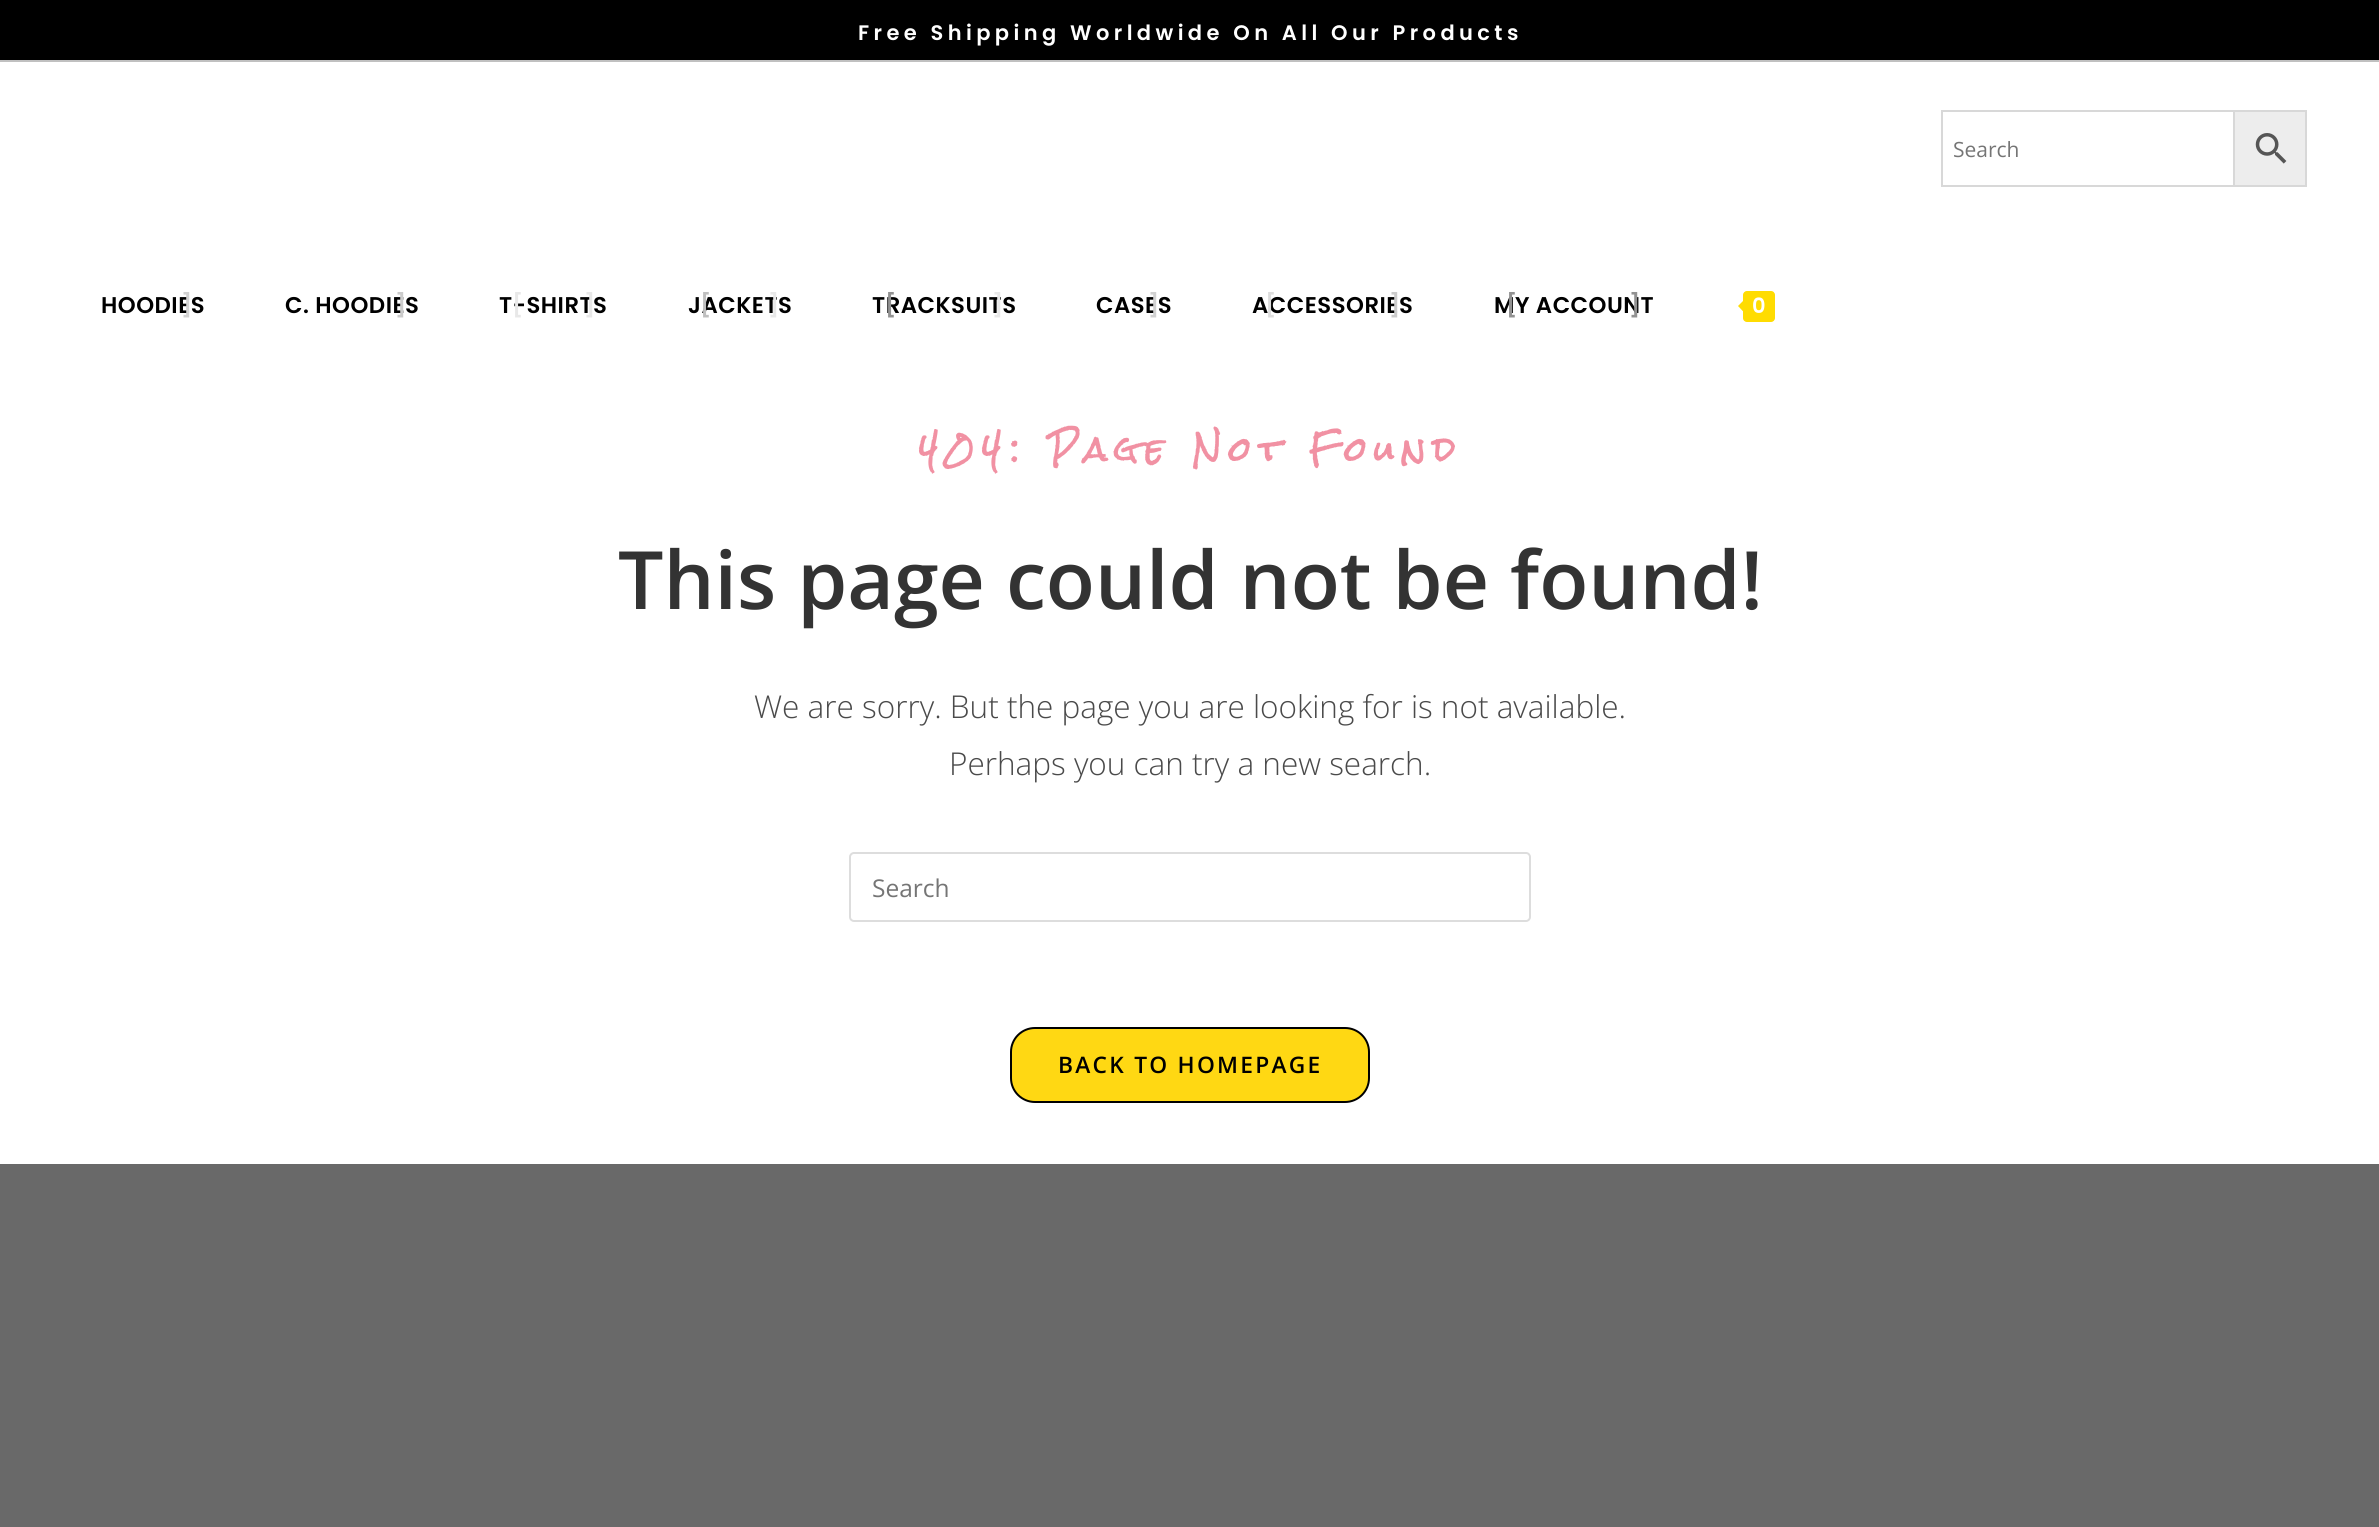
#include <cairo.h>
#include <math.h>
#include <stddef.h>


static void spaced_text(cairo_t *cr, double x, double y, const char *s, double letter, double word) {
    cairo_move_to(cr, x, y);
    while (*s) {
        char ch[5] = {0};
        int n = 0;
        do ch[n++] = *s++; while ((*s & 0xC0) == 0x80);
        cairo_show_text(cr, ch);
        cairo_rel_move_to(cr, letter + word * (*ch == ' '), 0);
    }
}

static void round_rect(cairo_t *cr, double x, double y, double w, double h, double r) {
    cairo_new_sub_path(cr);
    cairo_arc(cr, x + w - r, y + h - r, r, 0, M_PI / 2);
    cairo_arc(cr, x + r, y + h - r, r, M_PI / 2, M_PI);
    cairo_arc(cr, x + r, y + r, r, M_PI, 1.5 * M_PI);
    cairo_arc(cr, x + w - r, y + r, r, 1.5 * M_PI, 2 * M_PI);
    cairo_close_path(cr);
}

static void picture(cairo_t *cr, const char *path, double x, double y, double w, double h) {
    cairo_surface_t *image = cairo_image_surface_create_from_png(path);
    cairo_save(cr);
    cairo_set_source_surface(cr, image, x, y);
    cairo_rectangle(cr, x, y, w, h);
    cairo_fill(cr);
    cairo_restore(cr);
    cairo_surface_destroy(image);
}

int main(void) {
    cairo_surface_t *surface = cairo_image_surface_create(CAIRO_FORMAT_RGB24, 2379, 1527);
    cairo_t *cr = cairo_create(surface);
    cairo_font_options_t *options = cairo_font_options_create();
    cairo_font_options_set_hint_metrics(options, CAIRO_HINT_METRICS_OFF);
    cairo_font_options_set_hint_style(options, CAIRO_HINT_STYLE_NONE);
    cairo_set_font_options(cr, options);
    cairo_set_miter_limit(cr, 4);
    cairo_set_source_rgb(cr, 1, 1, 1);
    cairo_paint(cr);
    cairo_set_source_rgb(cr, 0, 0, 0);
    cairo_rectangle(cr, 0, 0, 2379, 60);
    cairo_fill(cr);
    cairo_set_source_rgb(cr, 0.753, 0.753, 0.753);
    cairo_rectangle(cr, 0, 60, 2379, 2);
    cairo_fill(cr);
    cairo_select_font_face(cr, "Poppins SemiBold", CAIRO_FONT_SLANT_NORMAL, CAIRO_FONT_WEIGHT_NORMAL);
    cairo_set_font_size(cr, 21);
    cairo_set_source_rgb(cr, 1, 1, 1);
    spaced_text(cr, 858, 40, "Free Shipping Worldwide On All Our Products", 4.4, 0);
    cairo_set_source_rgb(cr, 0.929, 0.929, 0.929);
    cairo_rectangle(cr, 2234, 111, 72, 75);
    cairo_fill_preserve(cr);
    cairo_set_source_rgb(cr, 0.847, 0.847, 0.847);
    cairo_stroke(cr);
    cairo_rectangle(cr, 1942, 111, 292, 75);
    cairo_stroke(cr);
    cairo_select_font_face(cr, "Open Sans", CAIRO_FONT_SLANT_NORMAL, CAIRO_FONT_WEIGHT_NORMAL);
    cairo_set_source_rgb(cr, 0.459, 0.459, 0.459);
    cairo_move_to(cr, 1953, 157);
    cairo_show_text(cr, "Search");
    picture(cr, "img1.png", 2255, 133, 32, 31);
    cairo_select_font_face(cr, "Poppins SemiBold", CAIRO_FONT_SLANT_NORMAL, CAIRO_FONT_WEIGHT_NORMAL);
    cairo_set_font_size(cr, 22.75);
    cairo_set_source_rgb(cr, 0, 0, 0);
    spaced_text(cr, 101, 313, "HOODIES", 0.5, 0);
    cairo_set_source_rgb(cr, 0.82, 0.82, 0.82);
    spaced_text(cr, 181, 313, "]", 0.5, 0);
    cairo_set_source_rgb(cr, 0, 0, 0);
    spaced_text(cr, 285, 313, "C. HOODIES", 0.5, 0);
    cairo_set_source_rgb(cr, 0.796, 0.796, 0.796);
    spaced_text(cr, 395, 313, "]", 0.5, 0);
    cairo_set_source_rgb(cr, 0, 0, 0);
    spaced_text(cr, 499, 313, "T-SHIRTS", 0.5, 0);
    cairo_set_source_rgb(cr, 0.91, 0.91, 0.91);
    spaced_text(cr, 512, 313, "[", 0.5, 0);
    spaced_text(cr, 584, 313, "]", 0.5, 0);
    cairo_set_source_rgb(cr, 0, 0, 0);
    spaced_text(cr, 688, 313, "JACKETS", 0.5, 0);
    cairo_set_source_rgb(cr, 0.749, 0.749, 0.749);
    spaced_text(cr, 700, 313, "[", 0.5, 0);
    cairo_set_source_rgb(cr, 0.91, 0.91, 0.91);
    spaced_text(cr, 768, 313, "]", 0.5, 0);
    cairo_set_source_rgb(cr, 0, 0, 0);
    spaced_text(cr, 872, 313, "TRACKSUITS", 0.5, 0);
    cairo_set_source_rgb(cr, 0.573, 0.573, 0.573);
    spaced_text(cr, 885, 313, "[", 0.5, 0);
    cairo_set_source_rgb(cr, 0.91, 0.91, 0.91);
    spaced_text(cr, 992, 313, "]", 0.5, 0);
    cairo_set_source_rgb(cr, 0, 0, 0);
    spaced_text(cr, 1096, 313, "CASES", 0.5, 0);
    cairo_set_source_rgb(cr, 0.82, 0.82, 0.82);
    spaced_text(cr, 1148, 313, "]", 0.5, 0);
    cairo_set_source_rgb(cr, 0, 0, 0);
    spaced_text(cr, 1252, 313, "ACCESSORIES", 0.5, 0);
    cairo_set_source_rgb(cr, 0.867, 0.867, 0.867);
    spaced_text(cr, 1265, 313, "[", 0.5, 0);
    cairo_set_source_rgb(cr, 0.796, 0.796, 0.796);
    spaced_text(cr, 1389, 313, "]", 0.5, 0);
    cairo_set_source_rgb(cr, 0, 0, 0);
    spaced_text(cr, 1494, 313, "MY ACCOUNT", 0.5, 0);
    cairo_set_source_rgb(cr, 0.573, 0.573, 0.573);
    spaced_text(cr, 1506, 313, "[", 0.5, 0);
    spaced_text(cr, 1629, 313, "]", 0.5, 0);
    cairo_set_source_rgb(cr, 1, 0.863, 0.004);
    round_rect(cr, 1743, 291, 32, 31, 4);
    cairo_fill(cr);
    cairo_new_path(cr);
    cairo_move_to(cr, 1746.5, 297.5);
    cairo_line_to(cr, 1746.5, 315);
    cairo_line_to(cr, 1738, 306);
    cairo_close_path(cr);
    cairo_fill(cr);
    cairo_set_font_size(cr, 21);
    cairo_set_source_rgb(cr, 1, 1, 1);
    cairo_move_to(cr, 1752, 313);
    cairo_show_text(cr, "0");
    cairo_select_font_face(cr, "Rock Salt", CAIRO_FONT_SLANT_NORMAL, CAIRO_FONT_WEIGHT_BOLD);
    cairo_set_font_size(cr, 31.5);
    cairo_set_source_rgb(cr, 0.945, 0.569, 0.639);
    spaced_text(cr, 918, 462, "404: Page Not Found", 7.75, 0);
    cairo_select_font_face(cr, "Open Sans SemiBold", CAIRO_FONT_SLANT_NORMAL, CAIRO_FONT_WEIGHT_NORMAL);
    cairo_set_font_size(cr, 80.5);
    cairo_set_source_rgb(cr, 0.2, 0.2, 0.2);
    cairo_move_to(cr, 618, 609);
    cairo_show_text(cr, "This page could not be found!");
    cairo_select_font_face(cr, "Open Sans Light", CAIRO_FONT_SLANT_NORMAL, CAIRO_FONT_WEIGHT_NORMAL);
    cairo_set_font_size(cr, 31.5);
    cairo_set_source_rgb(cr, 0.29, 0.29, 0.29);
    cairo_move_to(cr, 754, 718);
    cairo_show_text(cr, "We are sorry. But the page you are looking for is not available.");
    cairo_move_to(cr, 949, 775);
    cairo_show_text(cr, "Perhaps you can try a new search.");
    round_rect(cr, 850, 853, 680, 68, 4);
    cairo_set_source_rgb(cr, 0.867, 0.867, 0.867);
    cairo_stroke(cr);
    cairo_select_font_face(cr, "Open Sans", CAIRO_FONT_SLANT_NORMAL, CAIRO_FONT_WEIGHT_NORMAL);
    cairo_set_font_size(cr, 24.5);
    cairo_set_source_rgb(cr, 0.459, 0.459, 0.459);
    cairo_move_to(cr, 872, 897);
    cairo_show_text(cr, "Search");
    cairo_set_source_rgb(cr, 1, 0.847, 0.078);
    round_rect(cr, 1011, 1028, 358, 74, 24);
    cairo_fill_preserve(cr);
    cairo_set_source_rgb(cr, 0, 0, 0);
    cairo_stroke(cr);
    cairo_select_font_face(cr, "Open Sans SemiBold", CAIRO_FONT_SLANT_NORMAL, CAIRO_FONT_WEIGHT_NORMAL);
    cairo_set_font_size(cr, 22.75);
    spaced_text(cr, 1058, 1073, "BACK TO HOMEPAGE", 2.25, 0);
    cairo_set_source_rgb(cr, 0.412, 0.412, 0.412);
    cairo_rectangle(cr, 0, 1164, 2379, 363);
    cairo_fill(cr);
    cairo_surface_write_to_png(surface, "page.png");
    cairo_font_options_destroy(options);
    cairo_destroy(cr);
    cairo_surface_destroy(surface);
    return 0;
}
